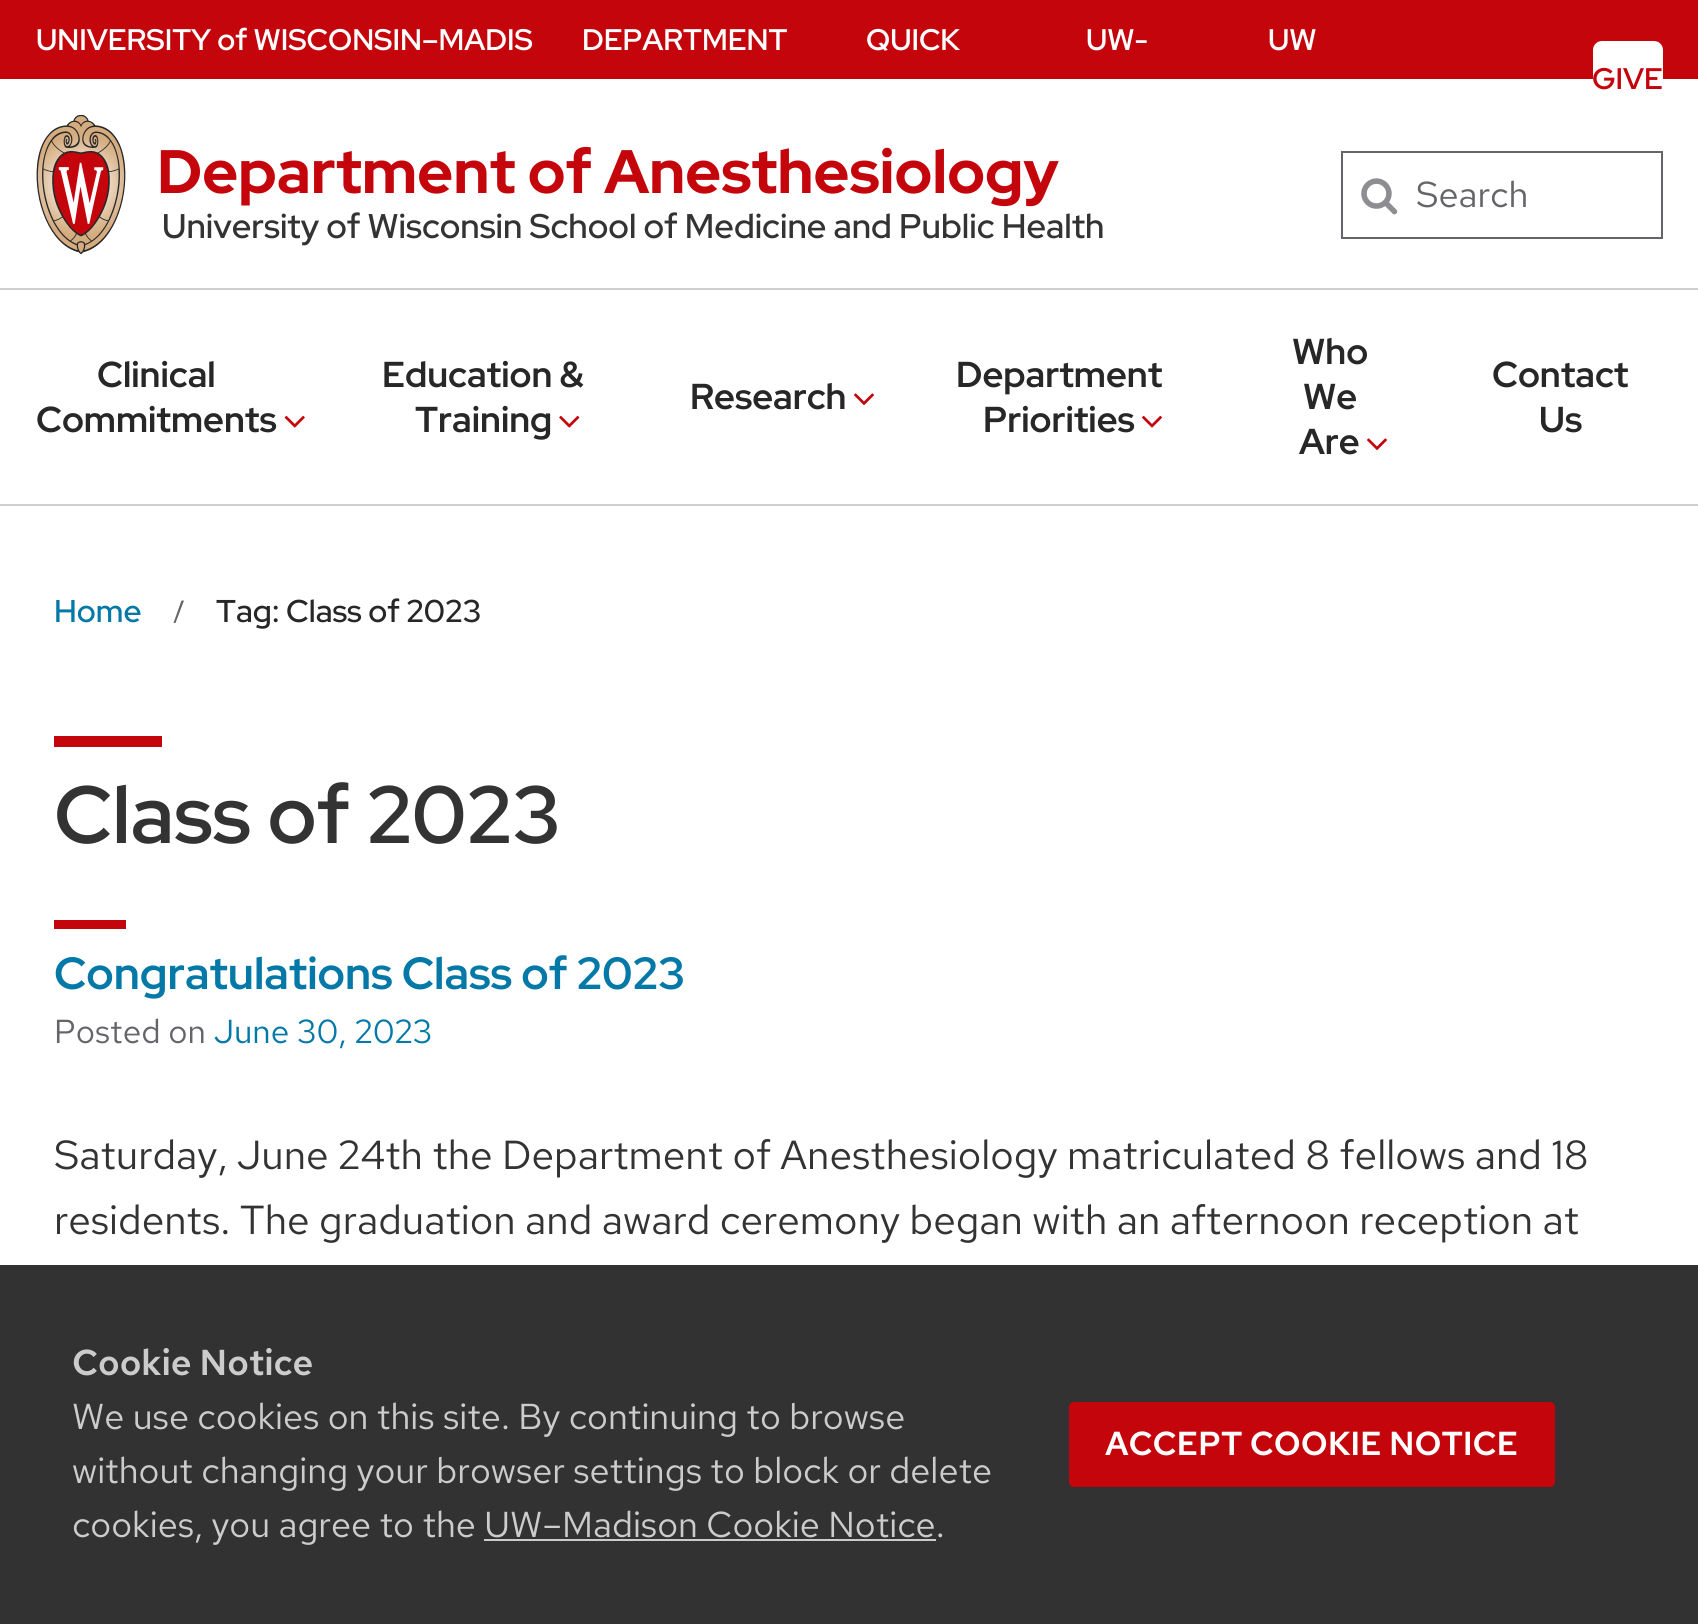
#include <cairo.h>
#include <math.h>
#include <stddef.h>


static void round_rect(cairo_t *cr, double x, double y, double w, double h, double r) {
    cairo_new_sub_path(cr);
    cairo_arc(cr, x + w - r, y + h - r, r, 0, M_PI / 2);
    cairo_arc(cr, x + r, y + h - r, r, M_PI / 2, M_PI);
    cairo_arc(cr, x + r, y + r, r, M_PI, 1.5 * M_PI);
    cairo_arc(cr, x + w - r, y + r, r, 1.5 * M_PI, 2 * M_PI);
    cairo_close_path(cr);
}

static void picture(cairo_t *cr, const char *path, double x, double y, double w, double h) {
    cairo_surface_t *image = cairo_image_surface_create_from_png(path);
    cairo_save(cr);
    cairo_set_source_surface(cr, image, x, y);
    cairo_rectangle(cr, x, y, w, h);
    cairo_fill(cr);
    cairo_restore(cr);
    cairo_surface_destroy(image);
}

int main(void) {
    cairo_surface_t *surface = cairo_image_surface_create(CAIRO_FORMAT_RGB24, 1698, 1624);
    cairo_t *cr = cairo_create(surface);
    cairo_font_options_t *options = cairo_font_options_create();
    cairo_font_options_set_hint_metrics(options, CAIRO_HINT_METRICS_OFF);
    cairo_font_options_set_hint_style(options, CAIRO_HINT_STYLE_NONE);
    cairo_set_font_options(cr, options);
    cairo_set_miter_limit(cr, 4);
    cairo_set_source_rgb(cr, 1, 1, 1);
    cairo_paint(cr);
    cairo_set_source_rgb(cr, 0.2, 0.196, 0.2);
    cairo_rectangle(cr, 0, 1265, 1698, 359);
    cairo_fill(cr);
    cairo_set_source_rgb(cr, 0.773, 0.02, 0.047);
    cairo_rectangle(cr, 0, 0, 1698, 79);
    cairo_fill(cr);
    cairo_select_font_face(cr, "Red Hat Display SemiBold", CAIRO_FONT_SLANT_NORMAL, CAIRO_FONT_WEIGHT_NORMAL);
    cairo_set_font_size(cr, 29.75);
    cairo_set_source_rgb(cr, 1, 1, 1);
    cairo_move_to(cr, 36, 50);
    cairo_show_text(cr, "UNIVERSITY of WISCONSIN–MADIS");
    cairo_move_to(cr, 582, 50);
    cairo_show_text(cr, "DEPARTMENT");
    cairo_move_to(cr, 866, 50);
    cairo_show_text(cr, "QUICK");
    cairo_move_to(cr, 1086, 50);
    cairo_show_text(cr, "UW-");
    cairo_move_to(cr, 1268, 50);
    cairo_show_text(cr, "UW");
    round_rect(cr, 1593, 41, 70, 78, 9);
    cairo_fill(cr);
    cairo_set_source_rgb(cr, 0.773, 0.02, 0.047);
    cairo_move_to(cr, 1592, 89);
    cairo_show_text(cr, "GIVE");
    cairo_set_source_rgb(cr, 0.812, 0.812, 0.812);
    cairo_rectangle(cr, 0, 288, 1698, 2);
    cairo_fill(cr);
    cairo_rectangle(cr, 0, 504, 1698, 2);
    cairo_fill(cr);
    cairo_select_font_face(cr, "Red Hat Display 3 SemiBold", CAIRO_FONT_SLANT_NORMAL, CAIRO_FONT_WEIGHT_NORMAL);
    cairo_set_font_size(cr, 36);
    cairo_set_source_rgb(cr, 0.157, 0.153, 0.157);
    cairo_move_to(cr, 97, 387);
    cairo_show_text(cr, "Clinical");
    cairo_move_to(cr, 36, 432);
    cairo_show_text(cr, "Commitments");
    picture(cr, "img1.png", 284, 415, 21, 13);
    cairo_move_to(cr, 382, 387);
    cairo_show_text(cr, "Education &");
    cairo_move_to(cr, 415, 432);
    cairo_show_text(cr, "Training");
    picture(cr, "img2.png", 559, 415, 21, 13);
    cairo_move_to(cr, 690, 409);
    cairo_show_text(cr, "Research");
    picture(cr, "img3.png", 854, 393, 20, 12);
    cairo_move_to(cr, 956, 387);
    cairo_show_text(cr, "Department");
    cairo_move_to(cr, 983, 432);
    cairo_show_text(cr, "Priorities");
    picture(cr, "img4.png", 1142, 415, 20, 13);
    cairo_move_to(cr, 1292, 364);
    cairo_show_text(cr, "Who");
    cairo_move_to(cr, 1303, 409);
    cairo_show_text(cr, "We");
    cairo_move_to(cr, 1299, 454);
    cairo_show_text(cr, "Are");
    picture(cr, "img3.png", 1367, 438, 20, 12);
    cairo_move_to(cr, 1492, 387);
    cairo_show_text(cr, "Contact");
    cairo_move_to(cr, 1539, 432);
    cairo_show_text(cr, "Us");
    picture(cr, "img5.png", 36, 115, 90, 139);
    cairo_select_font_face(cr, "Red Hat Display ExtraBold", CAIRO_FONT_SLANT_NORMAL, CAIRO_FONT_WEIGHT_NORMAL);
    cairo_set_font_size(cr, 61.25);
    cairo_set_source_rgb(cr, 0.773, 0.02, 0.047);
    cairo_move_to(cr, 157, 193);
    cairo_show_text(cr, "Department of Anesthesiology");
    cairo_select_font_face(cr, "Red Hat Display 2 SemiBold", CAIRO_FONT_SLANT_NORMAL, CAIRO_FONT_WEIGHT_NORMAL);
    cairo_set_font_size(cr, 34.2);
    cairo_set_source_rgb(cr, 0.2, 0.2, 0.2);
    cairo_move_to(cr, 162, 238);
    cairo_show_text(cr, "University of Wisconsin School of Medicine and Public Health");
    picture(cr, "img6.png", 1361, 178, 37, 37);
    cairo_rectangle(cr, 1342, 152, 320, 86);
    cairo_set_source_rgb(cr, 0.392, 0.396, 0.412);
    cairo_stroke(cr);
    cairo_select_font_face(cr, "Red Hat Text", CAIRO_FONT_SLANT_NORMAL, CAIRO_FONT_WEIGHT_NORMAL);
    cairo_set_font_size(cr, 36);
    cairo_move_to(cr, 1416, 207);
    cairo_show_text(cr, "Search");
    cairo_select_font_face(cr, "Red Hat Display Medium", CAIRO_FONT_SLANT_NORMAL, CAIRO_FONT_WEIGHT_NORMAL);
    cairo_set_font_size(cr, 31.5);
    cairo_set_source_rgb(cr, 0.016, 0.475, 0.659);
    cairo_move_to(cr, 54, 622);
    cairo_show_text(cr, "Home");
    cairo_set_source_rgb(cr, 0.392, 0.396, 0.412);
    cairo_new_path(cr);
    cairo_move_to(cr, 181.5, 600.5);
    cairo_line_to(cr, 184, 600.5);
    cairo_line_to(cr, 175.5, 623);
    cairo_line_to(cr, 173.5, 623);
    cairo_close_path(cr);
    cairo_fill(cr);
    cairo_set_source_rgb(cr, 0.157, 0.153, 0.157);
    cairo_move_to(cr, 216, 622);
    cairo_show_text(cr, "Tag: Class of 2023");
    cairo_set_source_rgb(cr, 0.773, 0.02, 0.047);
    cairo_rectangle(cr, 54, 736, 108, 11);
    cairo_fill(cr);
    cairo_select_font_face(cr, "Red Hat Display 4 SemiBold", CAIRO_FONT_SLANT_NORMAL, CAIRO_FONT_WEIGHT_NORMAL);
    cairo_set_font_size(cr, 81);
    cairo_set_source_rgb(cr, 0.2, 0.2, 0.2);
    cairo_move_to(cr, 54, 843);
    cairo_show_text(cr, "Class of 2023");
    cairo_set_source_rgb(cr, 0.773, 0.02, 0.047);
    cairo_rectangle(cr, 54, 920, 72, 9);
    cairo_fill(cr);
    cairo_select_font_face(cr, "Red Hat Display 3 SemiBold", CAIRO_FONT_SLANT_NORMAL, CAIRO_FONT_WEIGHT_NORMAL);
    cairo_set_font_size(cr, 45);
    cairo_set_source_rgb(cr, 0.016, 0.475, 0.659);
    cairo_move_to(cr, 54, 989);
    cairo_show_text(cr, "Congratulations Class of 2023");
    cairo_select_font_face(cr, "Red Hat Text", CAIRO_FONT_SLANT_NORMAL, CAIRO_FONT_WEIGHT_NORMAL);
    cairo_set_font_size(cr, 33.25);
    cairo_set_source_rgb(cr, 0.392, 0.396, 0.412);
    cairo_move_to(cr, 54, 1043);
    cairo_show_text(cr, "Posted on");
    cairo_set_source_rgb(cr, 0.016, 0.475, 0.659);
    cairo_move_to(cr, 214, 1043);
    cairo_show_text(cr, "June 30, 2023");
    cairo_set_font_size(cr, 40.5);
    cairo_set_source_rgb(cr, 0.2, 0.2, 0.2);
    cairo_move_to(cr, 54, 1169);
    cairo_show_text(cr, "Saturday, June 24th the Department of Anesthesiology matriculated 8 fellows and 18");
    cairo_move_to(cr, 54, 1234);
    cairo_show_text(cr, "residents. The graduation and award ceremony began with an afternoon reception at");
    cairo_select_font_face(cr, "Red Hat Text SemiBold", CAIRO_FONT_SLANT_NORMAL, CAIRO_FONT_WEIGHT_NORMAL);
    cairo_set_font_size(cr, 36);
    cairo_set_source_rgb(cr, 0.8, 0.8, 0.8);
    cairo_move_to(cr, 72, 1375);
    cairo_show_text(cr, "Cookie Notice");
    cairo_select_font_face(cr, "Red Hat Text", CAIRO_FONT_SLANT_NORMAL, CAIRO_FONT_WEIGHT_NORMAL);
    cairo_move_to(cr, 72, 1429);
    cairo_show_text(cr, "We use cookies on this site. By continuing to browse");
    cairo_move_to(cr, 72, 1483);
    cairo_show_text(cr, "without changing your browser settings to block or delete");
    cairo_move_to(cr, 72, 1537);
    cairo_show_text(cr, "cookies, you agree to the UW–Madison Cookie Notice.");
    cairo_rectangle(cr, 484, 1539, 452, 2);
    cairo_fill(cr);
    cairo_set_source_rgb(cr, 0.773, 0.02, 0.047);
    round_rect(cr, 1069, 1402, 486, 85, 5);
    cairo_fill(cr);
    cairo_select_font_face(cr, "Red Hat Text SemiBold", CAIRO_FONT_SLANT_NORMAL, CAIRO_FONT_WEIGHT_NORMAL);
    cairo_set_font_size(cr, 33.25);
    cairo_set_source_rgb(cr, 1, 1, 1);
    cairo_move_to(cr, 1105, 1455);
    cairo_show_text(cr, "ACCEPT COOKIE NOTICE");
    cairo_surface_write_to_png(surface, "page.png");
    cairo_font_options_destroy(options);
    cairo_destroy(cr);
    cairo_surface_destroy(surface);
    return 0;
}
